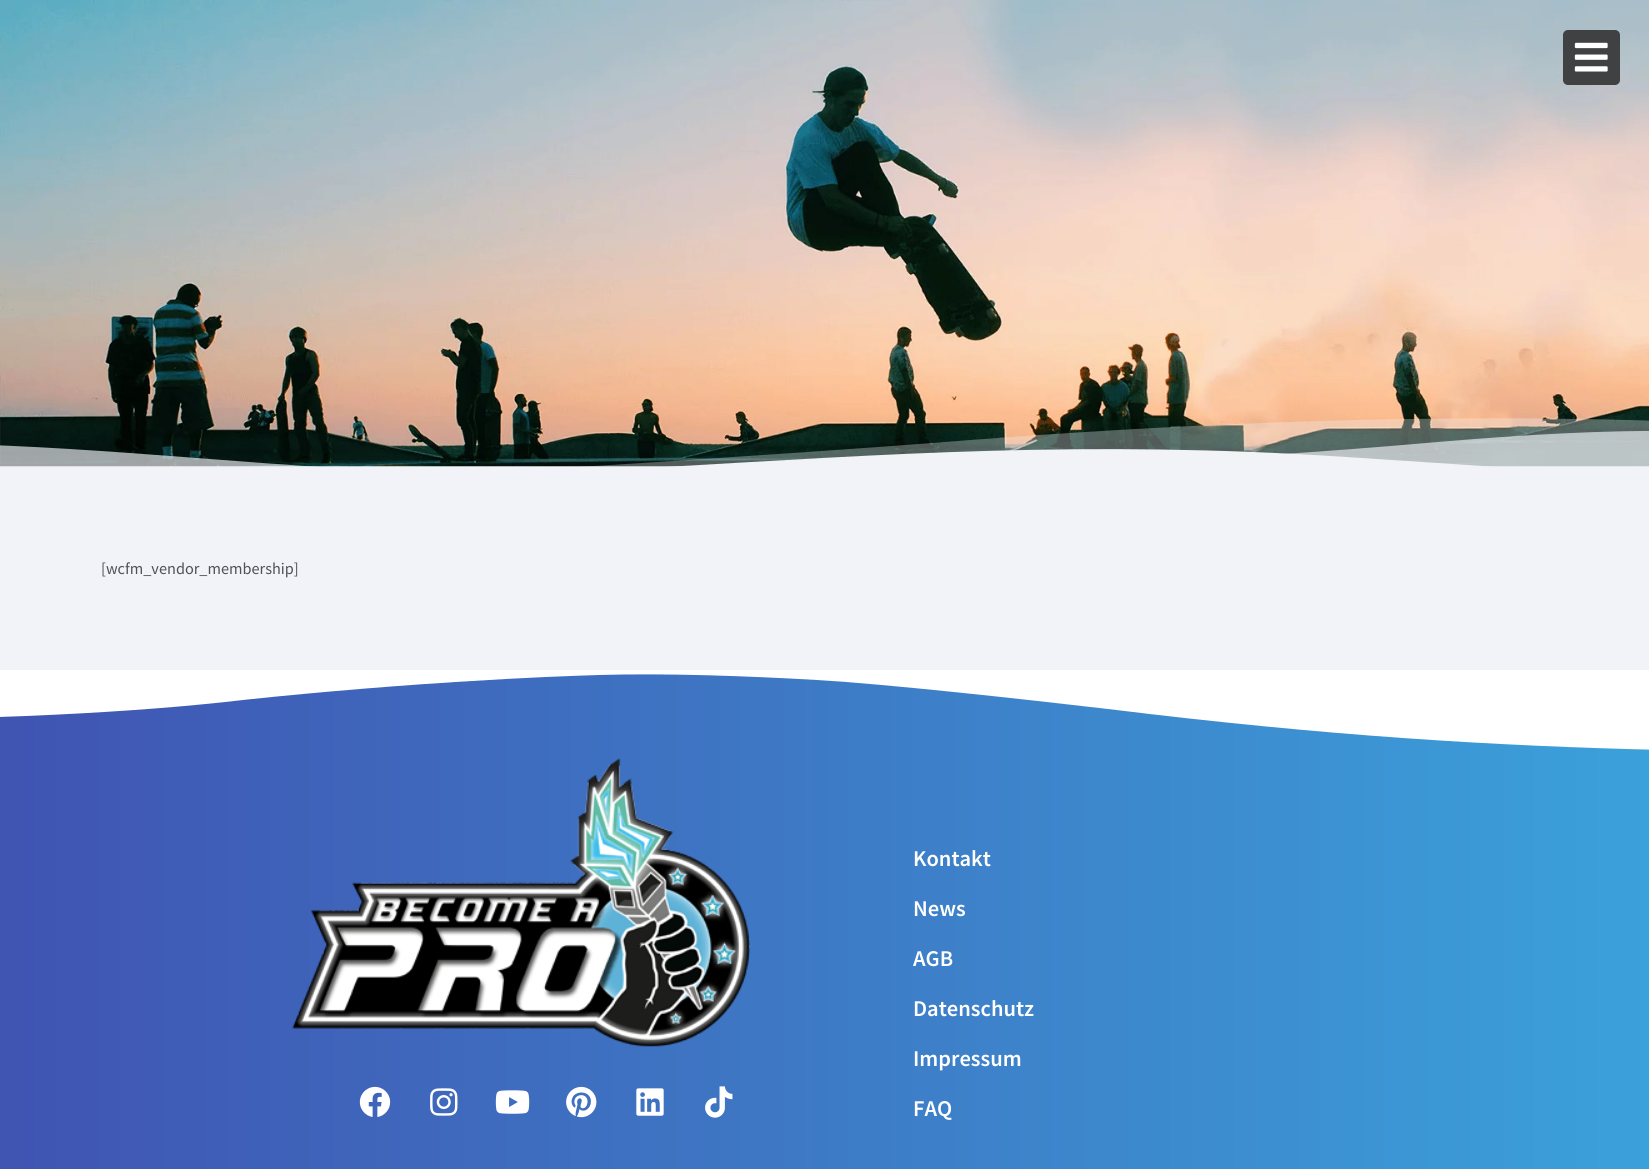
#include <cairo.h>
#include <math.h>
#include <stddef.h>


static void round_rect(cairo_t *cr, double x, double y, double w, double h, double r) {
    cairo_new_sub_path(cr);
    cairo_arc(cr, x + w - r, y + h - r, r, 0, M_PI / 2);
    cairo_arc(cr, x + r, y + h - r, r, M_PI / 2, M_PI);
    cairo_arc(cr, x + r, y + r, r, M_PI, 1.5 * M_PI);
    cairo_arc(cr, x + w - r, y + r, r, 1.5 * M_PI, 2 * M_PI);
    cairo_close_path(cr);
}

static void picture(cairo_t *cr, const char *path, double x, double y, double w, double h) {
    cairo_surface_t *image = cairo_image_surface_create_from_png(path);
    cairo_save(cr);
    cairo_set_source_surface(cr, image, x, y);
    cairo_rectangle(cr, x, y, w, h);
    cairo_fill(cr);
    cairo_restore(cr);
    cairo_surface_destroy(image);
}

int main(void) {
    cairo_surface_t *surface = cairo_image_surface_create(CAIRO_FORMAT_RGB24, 1649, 1169);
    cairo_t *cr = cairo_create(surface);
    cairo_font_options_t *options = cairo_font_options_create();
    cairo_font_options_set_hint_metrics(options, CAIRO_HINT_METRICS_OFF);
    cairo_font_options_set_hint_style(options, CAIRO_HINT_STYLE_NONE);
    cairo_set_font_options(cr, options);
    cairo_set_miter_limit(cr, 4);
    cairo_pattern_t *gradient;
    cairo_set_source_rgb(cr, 0.945, 0.953, 0.969);
    cairo_paint(cr);
    picture(cr, "img1.png", 0, 0, 1649, 467);
    picture(cr, "img2.png", 0, 418, 1649, 49);
    cairo_set_source_rgba(cr, 0.2, 0.2, 0.2, 0.9);
    round_rect(cr, 1563, 30, 57, 55, 5);
    cairo_fill(cr);
    picture(cr, "img3.png", 1574, 42, 34, 30);
    cairo_select_font_face(cr, "Source Sans Pro", CAIRO_FONT_SLANT_NORMAL, CAIRO_FONT_WEIGHT_NORMAL);
    cairo_set_font_size(cr, 16.25);
    cairo_set_source_rgb(cr, 0.318, 0.318, 0.318);
    cairo_move_to(cr, 101, 574);
    cairo_show_text(cr, "[wcfm_vendor_membership]");
    gradient = cairo_pattern_create_linear(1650, 946, 0, 946);
    cairo_pattern_add_color_stop_rgba(gradient, 0, 0.231, 0.631, 0.855, 1);
    cairo_pattern_add_color_stop_rgba(gradient, 1, 0.251, 0.329, 0.698, 1);
    cairo_set_source(cr, gradient);
    cairo_pattern_destroy(gradient);
    cairo_rectangle(cr, 0, 674, 1649, 495);
    cairo_fill(cr);
    cairo_set_source_rgb(cr, 1, 1, 1);
    cairo_new_path(cr);
    cairo_move_to(cr, 599, 675);
    cairo_curve_to(cr, 665, 673, 748, 676, 817, 680);
    cairo_curve_to(cr, 886, 684, 1022, 699, 1108, 709);
    cairo_curve_to(cr, 1327, 736, 1494, 746, 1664, 750);
    cairo_curve_to(cr, 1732, 752, 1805, 753, 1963, 748);
    cairo_curve_to(cr, 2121, 743, 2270, 727, 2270, 727);
    cairo_line_to(cr, 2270, 670);
    cairo_line_to(cr, -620, 670);
    cairo_line_to(cr, -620, 695);
    cairo_curve_to(cr, -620, 695, -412, 722, -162, 720);
    cairo_curve_to(cr, -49, 720, 106, 715, 225, 702);
    cairo_curve_to(cr, 286, 695, 376, 687, 455, 682);
    cairo_curve_to(cr, 534, 677, 570, 676, 599, 675);
    cairo_close_path(cr);
    cairo_fill(cr);
    picture(cr, "img4.png", 292, 758, 458, 289);
    picture(cr, "img5.png", 359, 1086, 32, 31);
    picture(cr, "img6.png", 430, 1088, 28, 28);
    picture(cr, "img7.png", 495, 1090, 35, 24);
    picture(cr, "img8.png", 566, 1086, 31, 32);
    picture(cr, "img9.png", 636, 1088, 28, 28);
    picture(cr, "img10.png", 705, 1086, 28, 32);
    cairo_select_font_face(cr, "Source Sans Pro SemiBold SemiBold", CAIRO_FONT_SLANT_NORMAL, CAIRO_FONT_WEIGHT_NORMAL);
    cairo_set_font_size(cr, 22.5);
    cairo_move_to(cr, 913, 866);
    cairo_show_text(cr, "Kontakt");
    cairo_move_to(cr, 913, 916);
    cairo_show_text(cr, "News");
    cairo_move_to(cr, 913, 966);
    cairo_show_text(cr, "AGB");
    cairo_move_to(cr, 913, 1016);
    cairo_show_text(cr, "Datenschutz");
    cairo_move_to(cr, 913, 1066);
    cairo_show_text(cr, "Impressum");
    cairo_move_to(cr, 913, 1116);
    cairo_show_text(cr, "FAQ");
    cairo_surface_write_to_png(surface, "page.png");
    cairo_font_options_destroy(options);
    cairo_destroy(cr);
    cairo_surface_destroy(surface);
    return 0;
}
